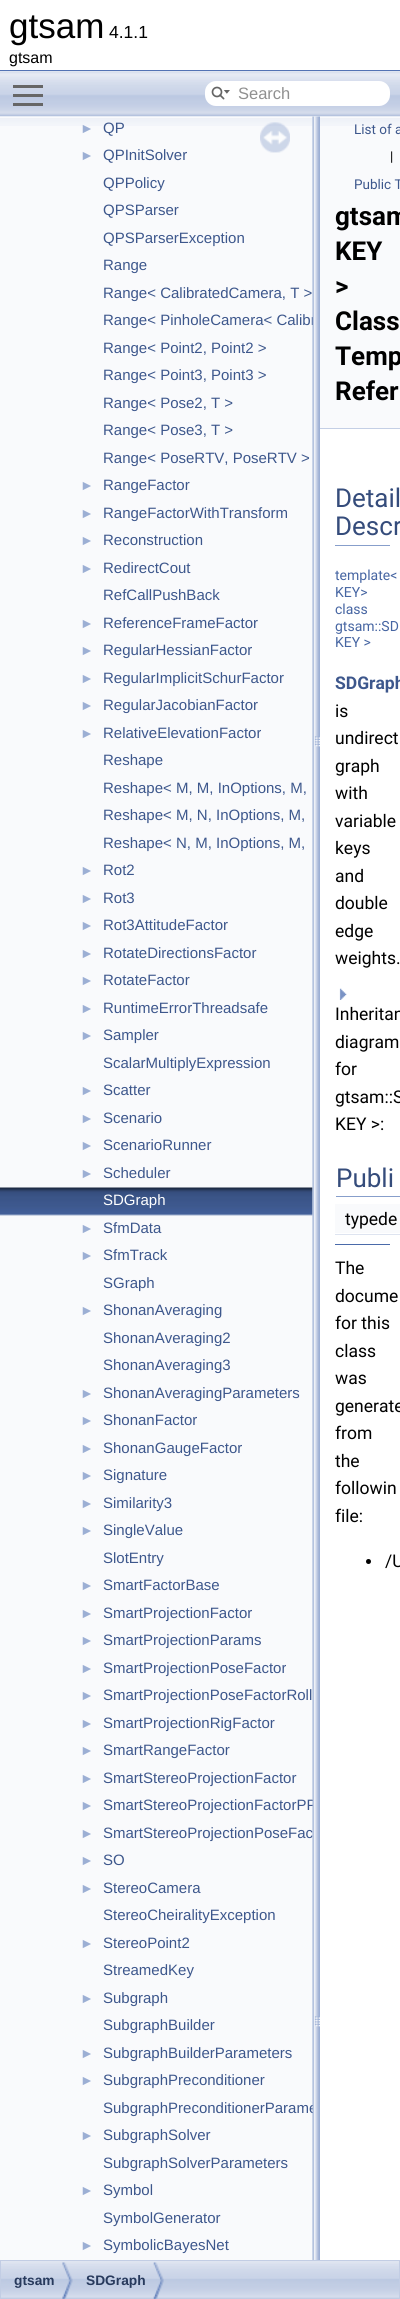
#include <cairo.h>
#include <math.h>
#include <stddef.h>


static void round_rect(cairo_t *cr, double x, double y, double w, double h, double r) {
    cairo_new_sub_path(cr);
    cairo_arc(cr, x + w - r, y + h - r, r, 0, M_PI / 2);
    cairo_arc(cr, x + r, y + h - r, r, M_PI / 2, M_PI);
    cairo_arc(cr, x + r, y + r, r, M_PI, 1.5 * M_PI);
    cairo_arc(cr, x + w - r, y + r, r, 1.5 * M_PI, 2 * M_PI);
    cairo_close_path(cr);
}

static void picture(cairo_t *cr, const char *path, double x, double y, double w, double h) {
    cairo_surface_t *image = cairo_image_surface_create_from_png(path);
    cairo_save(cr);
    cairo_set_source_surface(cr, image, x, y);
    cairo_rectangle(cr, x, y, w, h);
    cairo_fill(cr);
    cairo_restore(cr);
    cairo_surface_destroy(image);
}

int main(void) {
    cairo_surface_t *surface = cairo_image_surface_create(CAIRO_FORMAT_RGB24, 400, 2299);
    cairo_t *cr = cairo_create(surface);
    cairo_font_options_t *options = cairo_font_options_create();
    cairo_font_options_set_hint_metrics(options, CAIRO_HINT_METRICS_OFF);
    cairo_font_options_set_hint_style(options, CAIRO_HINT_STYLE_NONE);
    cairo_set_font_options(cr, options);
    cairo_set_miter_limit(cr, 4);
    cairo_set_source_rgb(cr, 1, 1, 1);
    cairo_paint(cr);
    cairo_set_source_rgb(cr, 0.325, 0.451, 0.706);
    cairo_rectangle(cr, 0, 70, 400, 1);
    cairo_fill(cr);
    cairo_select_font_face(cr, "Liberation Sans", CAIRO_FONT_SLANT_NORMAL, CAIRO_FONT_WEIGHT_NORMAL);
    cairo_set_font_size(cr, 35);
    cairo_set_source_rgb(cr, 0, 0, 0);
    cairo_move_to(cr, 9, 38);
    cairo_show_text(cr, "gtsam");
    cairo_set_font_size(cr, 17.5);
    cairo_move_to(cr, 109, 38);
    cairo_show_text(cr, "4.1.1");
    cairo_set_font_size(cr, 16);
    cairo_move_to(cr, 9, 63);
    cairo_show_text(cr, "gtsam");
    cairo_set_source_rgb(cr, 0.976, 0.98, 0.988);
    cairo_rectangle(cr, 0, 116, 313, 2144);
    cairo_fill(cr);
    picture(cr, "img3.png", 0, 118, 313, 8);
    cairo_set_font_size(cr, 15);
    cairo_set_source_rgb(cr, 0.239, 0.341, 0.549);
    cairo_move_to(cr, 103, 325);
    cairo_show_text(cr, "Range< PinholeCamera< Calibr");
    picture(cr, "img4.png", 0, 1187, 313, 29);
    cairo_move_to(cr, 103, 1810);
    cairo_show_text(cr, "SmartStereoProjectionFactorPP");
    cairo_move_to(cr, 103, 1838);
    cairo_show_text(cr, "SmartStereoProjectionPoseFac");
    cairo_move_to(cr, 103, 2113);
    cairo_show_text(cr, "SubgraphPreconditionerParame");
    picture(cr, "img6.png", 312, 116, 8, 2144);
    cairo_set_source_rgb(cr, 0.976, 0.98, 0.988);
    cairo_rectangle(cr, 320, 116, 80, 312);
    cairo_fill(cr);
    picture(cr, "img1.png", 0, 71, 400, 46);
    cairo_set_source_rgb(cr, 0.4, 0.4, 0.4);
    cairo_rectangle(cr, 13, 94, 30, 3);
    cairo_fill(cr);
    cairo_rectangle(cr, 13, 85, 30, 3);
    cairo_fill(cr);
    cairo_rectangle(cr, 13, 103, 30, 3);
    cairo_fill(cr);
    cairo_set_source_rgb(cr, 1, 1, 1);
    round_rect(cr, 205, 81, 185, 25, 11);
    cairo_fill(cr);
    picture(cr, "img2.png", 211, 86, 19, 14);
    cairo_set_font_size(cr, 16.5);
    cairo_set_source_rgb(cr, 0.565, 0.565, 0.565);
    cairo_move_to(cr, 238, 99);
    cairo_show_text(cr, "Search");
    cairo_set_font_size(cr, 14);
    cairo_set_source_rgb(cr, 0.612, 0.686, 0.831);
    cairo_move_to(cr, 80, 133);
    cairo_show_text(cr, "►");
    cairo_set_font_size(cr, 15);
    cairo_set_source_rgb(cr, 0.239, 0.341, 0.549);
    cairo_move_to(cr, 103, 133);
    cairo_show_text(cr, "QP");
    cairo_set_font_size(cr, 14);
    cairo_set_source_rgb(cr, 0.612, 0.686, 0.831);
    cairo_move_to(cr, 80, 160);
    cairo_show_text(cr, "►");
    cairo_set_font_size(cr, 15);
    cairo_set_source_rgb(cr, 0.239, 0.341, 0.549);
    cairo_move_to(cr, 103, 160);
    cairo_show_text(cr, "QPInitSolver");
    cairo_move_to(cr, 103, 188);
    cairo_show_text(cr, "QPPolicy");
    cairo_move_to(cr, 103, 215);
    cairo_show_text(cr, "QPSParser");
    cairo_move_to(cr, 103, 243);
    cairo_show_text(cr, "QPSParserException");
    cairo_move_to(cr, 103, 270);
    cairo_show_text(cr, "Range");
    cairo_move_to(cr, 103, 298);
    cairo_show_text(cr, "Range< CalibratedCamera, T >");
    cairo_move_to(cr, 103, 353);
    cairo_show_text(cr, "Range< Point2, Point2 >");
    cairo_move_to(cr, 103, 380);
    cairo_show_text(cr, "Range< Point3, Point3 >");
    cairo_move_to(cr, 103, 408);
    cairo_show_text(cr, "Range< Pose2, T >");
    cairo_move_to(cr, 103, 435);
    cairo_show_text(cr, "Range< Pose3, T >");
    cairo_move_to(cr, 103, 463);
    cairo_show_text(cr, "Range< PoseRTV, PoseRTV >");
    cairo_set_font_size(cr, 14);
    cairo_set_source_rgb(cr, 0.612, 0.686, 0.831);
    cairo_move_to(cr, 80, 490);
    cairo_show_text(cr, "►");
    cairo_set_font_size(cr, 15);
    cairo_set_source_rgb(cr, 0.239, 0.341, 0.549);
    cairo_move_to(cr, 103, 490);
    cairo_show_text(cr, "RangeFactor");
    cairo_set_font_size(cr, 14);
    cairo_set_source_rgb(cr, 0.612, 0.686, 0.831);
    cairo_move_to(cr, 80, 518);
    cairo_show_text(cr, "►");
    cairo_set_font_size(cr, 15);
    cairo_set_source_rgb(cr, 0.239, 0.341, 0.549);
    cairo_move_to(cr, 103, 518);
    cairo_show_text(cr, "RangeFactorWithTransform");
    cairo_set_font_size(cr, 14);
    cairo_set_source_rgb(cr, 0.612, 0.686, 0.831);
    cairo_move_to(cr, 80, 545);
    cairo_show_text(cr, "►");
    cairo_set_font_size(cr, 15);
    cairo_set_source_rgb(cr, 0.239, 0.341, 0.549);
    cairo_move_to(cr, 103, 545);
    cairo_show_text(cr, "Reconstruction");
    cairo_set_font_size(cr, 14);
    cairo_set_source_rgb(cr, 0.612, 0.686, 0.831);
    cairo_move_to(cr, 80, 573);
    cairo_show_text(cr, "►");
    cairo_set_font_size(cr, 15);
    cairo_set_source_rgb(cr, 0.239, 0.341, 0.549);
    cairo_move_to(cr, 103, 573);
    cairo_show_text(cr, "RedirectCout");
    cairo_move_to(cr, 103, 600);
    cairo_show_text(cr, "RefCallPushBack");
    cairo_set_font_size(cr, 14);
    cairo_set_source_rgb(cr, 0.612, 0.686, 0.831);
    cairo_move_to(cr, 80, 628);
    cairo_show_text(cr, "►");
    cairo_set_font_size(cr, 15);
    cairo_set_source_rgb(cr, 0.239, 0.341, 0.549);
    cairo_move_to(cr, 103, 628);
    cairo_show_text(cr, "ReferenceFrameFactor");
    cairo_set_font_size(cr, 14);
    cairo_set_source_rgb(cr, 0.612, 0.686, 0.831);
    cairo_move_to(cr, 80, 655);
    cairo_show_text(cr, "►");
    cairo_set_font_size(cr, 15);
    cairo_set_source_rgb(cr, 0.239, 0.341, 0.549);
    cairo_move_to(cr, 103, 655);
    cairo_show_text(cr, "RegularHessianFactor");
    cairo_set_font_size(cr, 14);
    cairo_set_source_rgb(cr, 0.612, 0.686, 0.831);
    cairo_move_to(cr, 80, 683);
    cairo_show_text(cr, "►");
    cairo_set_font_size(cr, 15);
    cairo_set_source_rgb(cr, 0.239, 0.341, 0.549);
    cairo_move_to(cr, 103, 683);
    cairo_show_text(cr, "RegularImplicitSchurFactor");
    cairo_set_font_size(cr, 14);
    cairo_set_source_rgb(cr, 0.612, 0.686, 0.831);
    cairo_move_to(cr, 80, 710);
    cairo_show_text(cr, "►");
    cairo_set_font_size(cr, 15);
    cairo_set_source_rgb(cr, 0.239, 0.341, 0.549);
    cairo_move_to(cr, 103, 710);
    cairo_show_text(cr, "RegularJacobianFactor");
    cairo_set_font_size(cr, 14);
    cairo_set_source_rgb(cr, 0.612, 0.686, 0.831);
    cairo_move_to(cr, 80, 738);
    cairo_show_text(cr, "►");
    cairo_set_font_size(cr, 15);
    cairo_set_source_rgb(cr, 0.239, 0.341, 0.549);
    cairo_move_to(cr, 103, 738);
    cairo_show_text(cr, "RelativeElevationFactor");
    cairo_move_to(cr, 103, 765);
    cairo_show_text(cr, "Reshape");
    cairo_move_to(cr, 103, 793);
    cairo_show_text(cr, "Reshape< M, M, InOptions, M,");
    cairo_move_to(cr, 103, 820);
    cairo_show_text(cr, "Reshape< M, N, InOptions, M,");
    cairo_move_to(cr, 103, 848);
    cairo_show_text(cr, "Reshape< N, M, InOptions, M,");
    cairo_set_font_size(cr, 14);
    cairo_set_source_rgb(cr, 0.612, 0.686, 0.831);
    cairo_move_to(cr, 80, 875);
    cairo_show_text(cr, "►");
    cairo_set_font_size(cr, 15);
    cairo_set_source_rgb(cr, 0.239, 0.341, 0.549);
    cairo_move_to(cr, 103, 875);
    cairo_show_text(cr, "Rot2");
    cairo_set_font_size(cr, 14);
    cairo_set_source_rgb(cr, 0.612, 0.686, 0.831);
    cairo_move_to(cr, 80, 903);
    cairo_show_text(cr, "►");
    cairo_set_font_size(cr, 15);
    cairo_set_source_rgb(cr, 0.239, 0.341, 0.549);
    cairo_move_to(cr, 103, 903);
    cairo_show_text(cr, "Rot3");
    cairo_set_font_size(cr, 14);
    cairo_set_source_rgb(cr, 0.612, 0.686, 0.831);
    cairo_move_to(cr, 80, 930);
    cairo_show_text(cr, "►");
    cairo_set_font_size(cr, 15);
    cairo_set_source_rgb(cr, 0.239, 0.341, 0.549);
    cairo_move_to(cr, 103, 930);
    cairo_show_text(cr, "Rot3AttitudeFactor");
    cairo_set_font_size(cr, 14);
    cairo_set_source_rgb(cr, 0.612, 0.686, 0.831);
    cairo_move_to(cr, 80, 958);
    cairo_show_text(cr, "►");
    cairo_set_font_size(cr, 15);
    cairo_set_source_rgb(cr, 0.239, 0.341, 0.549);
    cairo_move_to(cr, 103, 958);
    cairo_show_text(cr, "RotateDirectionsFactor");
    cairo_set_font_size(cr, 14);
    cairo_set_source_rgb(cr, 0.612, 0.686, 0.831);
    cairo_move_to(cr, 80, 985);
    cairo_show_text(cr, "►");
    cairo_set_font_size(cr, 15);
    cairo_set_source_rgb(cr, 0.239, 0.341, 0.549);
    cairo_move_to(cr, 103, 985);
    cairo_show_text(cr, "RotateFactor");
    cairo_set_font_size(cr, 14);
    cairo_set_source_rgb(cr, 0.612, 0.686, 0.831);
    cairo_move_to(cr, 80, 1013);
    cairo_show_text(cr, "►");
    cairo_set_font_size(cr, 15);
    cairo_set_source_rgb(cr, 0.239, 0.341, 0.549);
    cairo_move_to(cr, 103, 1013);
    cairo_show_text(cr, "RuntimeErrorThreadsafe");
    cairo_set_font_size(cr, 14);
    cairo_set_source_rgb(cr, 0.612, 0.686, 0.831);
    cairo_move_to(cr, 80, 1040);
    cairo_show_text(cr, "►");
    cairo_set_font_size(cr, 15);
    cairo_set_source_rgb(cr, 0.239, 0.341, 0.549);
    cairo_move_to(cr, 103, 1040);
    cairo_show_text(cr, "Sampler");
    cairo_move_to(cr, 103, 1068);
    cairo_show_text(cr, "ScalarMultiplyExpression");
    cairo_set_font_size(cr, 14);
    cairo_set_source_rgb(cr, 0.612, 0.686, 0.831);
    cairo_move_to(cr, 80, 1095);
    cairo_show_text(cr, "►");
    cairo_set_font_size(cr, 15);
    cairo_set_source_rgb(cr, 0.239, 0.341, 0.549);
    cairo_move_to(cr, 103, 1095);
    cairo_show_text(cr, "Scatter");
    cairo_set_font_size(cr, 14);
    cairo_set_source_rgb(cr, 0.612, 0.686, 0.831);
    cairo_move_to(cr, 80, 1123);
    cairo_show_text(cr, "►");
    cairo_set_font_size(cr, 15);
    cairo_set_source_rgb(cr, 0.239, 0.341, 0.549);
    cairo_move_to(cr, 103, 1123);
    cairo_show_text(cr, "Scenario");
    cairo_set_font_size(cr, 14);
    cairo_set_source_rgb(cr, 0.612, 0.686, 0.831);
    cairo_move_to(cr, 80, 1150);
    cairo_show_text(cr, "►");
    cairo_set_font_size(cr, 15);
    cairo_set_source_rgb(cr, 0.239, 0.341, 0.549);
    cairo_move_to(cr, 103, 1150);
    cairo_show_text(cr, "ScenarioRunner");
    cairo_set_font_size(cr, 14);
    cairo_set_source_rgb(cr, 0.612, 0.686, 0.831);
    cairo_move_to(cr, 80, 1178);
    cairo_show_text(cr, "►");
    cairo_set_font_size(cr, 15);
    cairo_set_source_rgb(cr, 0.239, 0.341, 0.549);
    cairo_move_to(cr, 103, 1178);
    cairo_show_text(cr, "Scheduler");
    cairo_set_source_rgb(cr, 1, 1, 1);
    cairo_move_to(cr, 103, 1205);
    cairo_show_text(cr, "SDGraph");
    cairo_set_font_size(cr, 14);
    cairo_set_source_rgb(cr, 0.612, 0.686, 0.831);
    cairo_move_to(cr, 80, 1233);
    cairo_show_text(cr, "►");
    cairo_set_font_size(cr, 15);
    cairo_set_source_rgb(cr, 0.239, 0.341, 0.549);
    cairo_move_to(cr, 103, 1233);
    cairo_show_text(cr, "SfmData");
    cairo_set_font_size(cr, 14);
    cairo_set_source_rgb(cr, 0.612, 0.686, 0.831);
    cairo_move_to(cr, 80, 1260);
    cairo_show_text(cr, "►");
    cairo_set_font_size(cr, 15);
    cairo_set_source_rgb(cr, 0.239, 0.341, 0.549);
    cairo_move_to(cr, 103, 1260);
    cairo_show_text(cr, "SfmTrack");
    cairo_move_to(cr, 103, 1288);
    cairo_show_text(cr, "SGraph");
    cairo_set_font_size(cr, 14);
    cairo_set_source_rgb(cr, 0.612, 0.686, 0.831);
    cairo_move_to(cr, 80, 1315);
    cairo_show_text(cr, "►");
    cairo_set_font_size(cr, 15);
    cairo_set_source_rgb(cr, 0.239, 0.341, 0.549);
    cairo_move_to(cr, 103, 1315);
    cairo_show_text(cr, "ShonanAveraging");
    cairo_move_to(cr, 103, 1343);
    cairo_show_text(cr, "ShonanAveraging2");
    cairo_move_to(cr, 103, 1370);
    cairo_show_text(cr, "ShonanAveraging3");
    cairo_set_font_size(cr, 14);
    cairo_set_source_rgb(cr, 0.612, 0.686, 0.831);
    cairo_move_to(cr, 80, 1398);
    cairo_show_text(cr, "►");
    cairo_set_font_size(cr, 15);
    cairo_set_source_rgb(cr, 0.239, 0.341, 0.549);
    cairo_move_to(cr, 103, 1398);
    cairo_show_text(cr, "ShonanAveragingParameters");
    cairo_set_font_size(cr, 14);
    cairo_set_source_rgb(cr, 0.612, 0.686, 0.831);
    cairo_move_to(cr, 80, 1425);
    cairo_show_text(cr, "►");
    cairo_set_font_size(cr, 15);
    cairo_set_source_rgb(cr, 0.239, 0.341, 0.549);
    cairo_move_to(cr, 103, 1425);
    cairo_show_text(cr, "ShonanFactor");
    cairo_set_font_size(cr, 14);
    cairo_set_source_rgb(cr, 0.612, 0.686, 0.831);
    cairo_move_to(cr, 80, 1453);
    cairo_show_text(cr, "►");
    cairo_set_font_size(cr, 15);
    cairo_set_source_rgb(cr, 0.239, 0.341, 0.549);
    cairo_move_to(cr, 103, 1453);
    cairo_show_text(cr, "ShonanGaugeFactor");
    cairo_set_font_size(cr, 14);
    cairo_set_source_rgb(cr, 0.612, 0.686, 0.831);
    cairo_move_to(cr, 80, 1480);
    cairo_show_text(cr, "►");
    cairo_set_font_size(cr, 15);
    cairo_set_source_rgb(cr, 0.239, 0.341, 0.549);
    cairo_move_to(cr, 103, 1480);
    cairo_show_text(cr, "Signature");
    cairo_set_font_size(cr, 14);
    cairo_set_source_rgb(cr, 0.612, 0.686, 0.831);
    cairo_move_to(cr, 80, 1508);
    cairo_show_text(cr, "►");
    cairo_set_font_size(cr, 15);
    cairo_set_source_rgb(cr, 0.239, 0.341, 0.549);
    cairo_move_to(cr, 103, 1508);
    cairo_show_text(cr, "Similarity3");
    cairo_set_font_size(cr, 14);
    cairo_set_source_rgb(cr, 0.612, 0.686, 0.831);
    cairo_move_to(cr, 80, 1535);
    cairo_show_text(cr, "►");
    cairo_set_font_size(cr, 15);
    cairo_set_source_rgb(cr, 0.239, 0.341, 0.549);
    cairo_move_to(cr, 103, 1535);
    cairo_show_text(cr, "SingleValue");
    cairo_move_to(cr, 103, 1563);
    cairo_show_text(cr, "SlotEntry");
    cairo_set_font_size(cr, 14);
    cairo_set_source_rgb(cr, 0.612, 0.686, 0.831);
    cairo_move_to(cr, 80, 1590);
    cairo_show_text(cr, "►");
    cairo_set_font_size(cr, 15);
    cairo_set_source_rgb(cr, 0.239, 0.341, 0.549);
    cairo_move_to(cr, 103, 1590);
    cairo_show_text(cr, "SmartFactorBase");
    cairo_set_font_size(cr, 14);
    cairo_set_source_rgb(cr, 0.612, 0.686, 0.831);
    cairo_move_to(cr, 80, 1618);
    cairo_show_text(cr, "►");
    cairo_set_font_size(cr, 15);
    cairo_set_source_rgb(cr, 0.239, 0.341, 0.549);
    cairo_move_to(cr, 103, 1618);
    cairo_show_text(cr, "SmartProjectionFactor");
    cairo_set_font_size(cr, 14);
    cairo_set_source_rgb(cr, 0.612, 0.686, 0.831);
    cairo_move_to(cr, 80, 1645);
    cairo_show_text(cr, "►");
    cairo_set_font_size(cr, 15);
    cairo_set_source_rgb(cr, 0.239, 0.341, 0.549);
    cairo_move_to(cr, 103, 1645);
    cairo_show_text(cr, "SmartProjectionParams");
    cairo_set_font_size(cr, 14);
    cairo_set_source_rgb(cr, 0.612, 0.686, 0.831);
    cairo_move_to(cr, 80, 1673);
    cairo_show_text(cr, "►");
    cairo_set_font_size(cr, 15);
    cairo_set_source_rgb(cr, 0.239, 0.341, 0.549);
    cairo_move_to(cr, 103, 1673);
    cairo_show_text(cr, "SmartProjectionPoseFactor");
    cairo_set_font_size(cr, 14);
    cairo_set_source_rgb(cr, 0.612, 0.686, 0.831);
    cairo_move_to(cr, 80, 1700);
    cairo_show_text(cr, "►");
    cairo_set_font_size(cr, 15);
    cairo_set_source_rgb(cr, 0.239, 0.341, 0.549);
    cairo_move_to(cr, 103, 1700);
    cairo_show_text(cr, "SmartProjectionPoseFactorRoll");
    cairo_set_font_size(cr, 14);
    cairo_set_source_rgb(cr, 0.612, 0.686, 0.831);
    cairo_move_to(cr, 80, 1728);
    cairo_show_text(cr, "►");
    cairo_set_font_size(cr, 15);
    cairo_set_source_rgb(cr, 0.239, 0.341, 0.549);
    cairo_move_to(cr, 103, 1728);
    cairo_show_text(cr, "SmartProjectionRigFactor");
    cairo_set_font_size(cr, 14);
    cairo_set_source_rgb(cr, 0.612, 0.686, 0.831);
    cairo_move_to(cr, 80, 1755);
    cairo_show_text(cr, "►");
    cairo_set_font_size(cr, 15);
    cairo_set_source_rgb(cr, 0.239, 0.341, 0.549);
    cairo_move_to(cr, 103, 1755);
    cairo_show_text(cr, "SmartRangeFactor");
    cairo_set_font_size(cr, 14);
    cairo_set_source_rgb(cr, 0.612, 0.686, 0.831);
    cairo_move_to(cr, 80, 1783);
    cairo_show_text(cr, "►");
    cairo_set_font_size(cr, 15);
    cairo_set_source_rgb(cr, 0.239, 0.341, 0.549);
    cairo_move_to(cr, 103, 1783);
    cairo_show_text(cr, "SmartStereoProjectionFactor");
    cairo_set_font_size(cr, 14);
    cairo_set_source_rgb(cr, 0.612, 0.686, 0.831);
    cairo_move_to(cr, 80, 1810);
    cairo_show_text(cr, "►");
    cairo_move_to(cr, 80, 1838);
    cairo_show_text(cr, "►");
    cairo_move_to(cr, 80, 1865);
    cairo_show_text(cr, "►");
    cairo_set_font_size(cr, 15);
    cairo_set_source_rgb(cr, 0.239, 0.341, 0.549);
    cairo_move_to(cr, 103, 1865);
    cairo_show_text(cr, "SO");
    cairo_set_font_size(cr, 14);
    cairo_set_source_rgb(cr, 0.612, 0.686, 0.831);
    cairo_move_to(cr, 80, 1893);
    cairo_show_text(cr, "►");
    cairo_set_font_size(cr, 15);
    cairo_set_source_rgb(cr, 0.239, 0.341, 0.549);
    cairo_move_to(cr, 103, 1893);
    cairo_show_text(cr, "StereoCamera");
    cairo_move_to(cr, 103, 1920);
    cairo_show_text(cr, "StereoCheiralityException");
    cairo_set_font_size(cr, 14);
    cairo_set_source_rgb(cr, 0.612, 0.686, 0.831);
    cairo_move_to(cr, 80, 1948);
    cairo_show_text(cr, "►");
    cairo_set_font_size(cr, 15);
    cairo_set_source_rgb(cr, 0.239, 0.341, 0.549);
    cairo_move_to(cr, 103, 1948);
    cairo_show_text(cr, "StereoPoint2");
    cairo_move_to(cr, 103, 1975);
    cairo_show_text(cr, "StreamedKey");
    cairo_set_font_size(cr, 14);
    cairo_set_source_rgb(cr, 0.612, 0.686, 0.831);
    cairo_move_to(cr, 80, 2003);
    cairo_show_text(cr, "►");
    cairo_set_font_size(cr, 15);
    cairo_set_source_rgb(cr, 0.239, 0.341, 0.549);
    cairo_move_to(cr, 103, 2003);
    cairo_show_text(cr, "Subgraph");
    cairo_move_to(cr, 103, 2030);
    cairo_show_text(cr, "SubgraphBuilder");
    cairo_set_font_size(cr, 14);
    cairo_set_source_rgb(cr, 0.612, 0.686, 0.831);
    cairo_move_to(cr, 80, 2058);
    cairo_show_text(cr, "►");
    cairo_set_font_size(cr, 15);
    cairo_set_source_rgb(cr, 0.239, 0.341, 0.549);
    cairo_move_to(cr, 103, 2058);
    cairo_show_text(cr, "SubgraphBuilderParameters");
    cairo_set_font_size(cr, 14);
    cairo_set_source_rgb(cr, 0.612, 0.686, 0.831);
    cairo_move_to(cr, 80, 2085);
    cairo_show_text(cr, "►");
    cairo_set_font_size(cr, 15);
    cairo_set_source_rgb(cr, 0.239, 0.341, 0.549);
    cairo_move_to(cr, 103, 2085);
    cairo_show_text(cr, "SubgraphPreconditioner");
    cairo_set_font_size(cr, 14);
    cairo_set_source_rgb(cr, 0.612, 0.686, 0.831);
    cairo_move_to(cr, 80, 2140);
    cairo_show_text(cr, "►");
    cairo_set_font_size(cr, 15);
    cairo_set_source_rgb(cr, 0.239, 0.341, 0.549);
    cairo_move_to(cr, 103, 2140);
    cairo_show_text(cr, "SubgraphSolver");
    cairo_move_to(cr, 103, 2168);
    cairo_show_text(cr, "SubgraphSolverParameters");
    cairo_set_font_size(cr, 14);
    cairo_set_source_rgb(cr, 0.612, 0.686, 0.831);
    cairo_move_to(cr, 80, 2195);
    cairo_show_text(cr, "►");
    cairo_set_font_size(cr, 15);
    cairo_set_source_rgb(cr, 0.239, 0.341, 0.549);
    cairo_move_to(cr, 103, 2195);
    cairo_show_text(cr, "Symbol");
    cairo_move_to(cr, 103, 2223);
    cairo_show_text(cr, "SymbolGenerator");
    cairo_set_font_size(cr, 14);
    cairo_set_source_rgb(cr, 0.612, 0.686, 0.831);
    cairo_move_to(cr, 80, 2250);
    cairo_show_text(cr, "►");
    cairo_set_font_size(cr, 15);
    cairo_set_source_rgb(cr, 0.239, 0.341, 0.549);
    cairo_move_to(cr, 103, 2250);
    cairo_show_text(cr, "SymbolicBayesNet");
    picture(cr, "img5.png", 260, 122, 30, 31);
    picture(cr, "img7.png", 320, 118, 80, 8);
    cairo_set_source_rgb(cr, 0.769, 0.812, 0.898);
    cairo_rectangle(cr, 320, 428, 80, 1);
    cairo_fill(cr);
    cairo_select_font_face(cr, "Roboto", CAIRO_FONT_SLANT_NORMAL, CAIRO_FONT_WEIGHT_NORMAL);
    cairo_set_font_size(cr, 13.5);
    cairo_set_source_rgb(cr, 0.239, 0.341, 0.549);
    cairo_move_to(cr, 354, 134);
    cairo_show_text(cr, "List of a");
    cairo_set_source_rgb(cr, 0, 0, 0);
    cairo_move_to(cr, 390, 161);
    cairo_show_text(cr, "|");
    cairo_set_source_rgb(cr, 0.239, 0.341, 0.549);
    cairo_move_to(cr, 354, 189);
    cairo_show_text(cr, "Public T");
    cairo_select_font_face(cr, "Roboto", CAIRO_FONT_SLANT_NORMAL, CAIRO_FONT_WEIGHT_BOLD);
    cairo_set_font_size(cr, 26);
    cairo_set_source_rgb(cr, 0, 0, 0);
    cairo_move_to(cr, 335, 225);
    cairo_show_text(cr, "gtsam");
    cairo_move_to(cr, 335, 260);
    cairo_show_text(cr, "KEY");
    cairo_move_to(cr, 335, 295);
    cairo_show_text(cr, ">");
    cairo_move_to(cr, 335, 330);
    cairo_show_text(cr, "Class");
    cairo_move_to(cr, 335, 365);
    cairo_show_text(cr, "Temp");
    cairo_move_to(cr, 335, 400);
    cairo_show_text(cr, "Refer");
    cairo_set_source_rgb(cr, 0.529, 0.62, 0.796);
    cairo_rectangle(cr, 335, 545, 55, 1);
    cairo_fill(cr);
    cairo_select_font_face(cr, "Roboto", CAIRO_FONT_SLANT_NORMAL, CAIRO_FONT_WEIGHT_NORMAL);
    cairo_set_source_rgb(cr, 0.208, 0.298, 0.482);
    cairo_move_to(cr, 335, 507);
    cairo_show_text(cr, "Detail");
    cairo_move_to(cr, 335, 535);
    cairo_show_text(cr, "Descr");
    cairo_set_font_size(cr, 14);
    cairo_set_source_rgb(cr, 0.275, 0.396, 0.635);
    cairo_move_to(cr, 335, 580);
    cairo_show_text(cr, "template<");
    cairo_move_to(cr, 335, 597);
    cairo_show_text(cr, "KEY>");
    cairo_move_to(cr, 335, 614);
    cairo_show_text(cr, "class");
    cairo_move_to(cr, 335, 631);
    cairo_show_text(cr, "gtsam::SD");
    cairo_move_to(cr, 335, 647);
    cairo_show_text(cr, "KEY >");
    cairo_select_font_face(cr, "Roboto", CAIRO_FONT_SLANT_NORMAL, CAIRO_FONT_WEIGHT_BOLD);
    cairo_set_font_size(cr, 17.5);
    cairo_set_source_rgb(cr, 0.239, 0.341, 0.549);
    cairo_move_to(cr, 335, 689);
    cairo_show_text(cr, "SDGraph");
    cairo_select_font_face(cr, "Roboto", CAIRO_FONT_SLANT_NORMAL, CAIRO_FONT_WEIGHT_NORMAL);
    cairo_set_source_rgb(cr, 0, 0, 0);
    cairo_move_to(cr, 335, 717);
    cairo_show_text(cr, "is");
    cairo_move_to(cr, 335, 744);
    cairo_show_text(cr, "undirect");
    cairo_move_to(cr, 335, 772);
    cairo_show_text(cr, "graph");
    cairo_move_to(cr, 335, 799);
    cairo_show_text(cr, "with");
    cairo_move_to(cr, 335, 827);
    cairo_show_text(cr, "variable");
    cairo_move_to(cr, 335, 854);
    cairo_show_text(cr, "keys");
    cairo_move_to(cr, 335, 882);
    cairo_show_text(cr, "and");
    cairo_move_to(cr, 335, 909);
    cairo_show_text(cr, "double");
    cairo_move_to(cr, 335, 937);
    cairo_show_text(cr, "edge");
    cairo_move_to(cr, 335, 964);
    cairo_show_text(cr, "weights.");
    picture(cr, "img8.png", 339, 988, 8, 12);
    cairo_move_to(cr, 335, 1020);
    cairo_show_text(cr, "Inheritan");
    cairo_move_to(cr, 335, 1048);
    cairo_show_text(cr, "diagram");
    cairo_move_to(cr, 335, 1075);
    cairo_show_text(cr, "for");
    cairo_move_to(cr, 335, 1103);
    cairo_show_text(cr, "gtsam::S");
    cairo_move_to(cr, 335, 1130);
    cairo_show_text(cr, "KEY >:");
    cairo_set_source_rgb(cr, 0.529, 0.62, 0.796);
    cairo_rectangle(cr, 336, 1196, 64, 1);
    cairo_fill(cr);
    cairo_set_font_size(cr, 26);
    cairo_set_source_rgb(cr, 0.208, 0.298, 0.482);
    cairo_move_to(cr, 336, 1187);
    cairo_show_text(cr, "Publi");
    cairo_set_source_rgb(cr, 0.976, 0.98, 0.988);
    cairo_rectangle(cr, 335, 1204, 65, 29);
    cairo_fill(cr);
    cairo_set_font_size(cr, 17.5);
    cairo_set_source_rgb(cr, 0, 0, 0);
    cairo_move_to(cr, 345, 1225);
    cairo_show_text(cr, "typede");
    cairo_set_source_rgb(cr, 0.871, 0.894, 0.941);
    cairo_rectangle(cr, 335, 1234, 65, 1);
    cairo_fill(cr);
    cairo_set_source_rgb(cr, 0.29, 0.416, 0.667);
    cairo_rectangle(cr, 335, 1244, 55, 1);
    cairo_fill(cr);
    cairo_set_source_rgb(cr, 0, 0, 0);
    cairo_move_to(cr, 335, 1274);
    cairo_show_text(cr, "The");
    cairo_move_to(cr, 335, 1302);
    cairo_show_text(cr, "docume");
    cairo_move_to(cr, 335, 1329);
    cairo_show_text(cr, "for this");
    cairo_move_to(cr, 335, 1357);
    cairo_show_text(cr, "class");
    cairo_move_to(cr, 335, 1384);
    cairo_show_text(cr, "was");
    cairo_move_to(cr, 335, 1412);
    cairo_show_text(cr, "generate");
    cairo_move_to(cr, 335, 1439);
    cairo_show_text(cr, "from");
    cairo_move_to(cr, 335, 1467);
    cairo_show_text(cr, "the");
    cairo_move_to(cr, 335, 1494);
    cairo_show_text(cr, "followin");
    cairo_move_to(cr, 335, 1522);
    cairo_show_text(cr, "file:");
    cairo_new_path(cr);
    cairo_arc(cr, 368.5, 1561.5, 2.5, 0, 2 * M_PI);
    cairo_fill(cr);
    cairo_move_to(cr, 385, 1567);
    cairo_show_text(cr, "/U");
    picture(cr, "img9.png", 1, 2261, 398, 38);
    cairo_rectangle(cr, 0.5, 2260.5, 399, 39);
    cairo_set_source_rgb(cr, 0.761, 0.804, 0.894);
    cairo_set_line_width(cr, 1);
    cairo_stroke(cr);
    picture(cr, "img10.png", 62, 2262, 11, 37);
    cairo_select_font_face(cr, "Liberation Sans", CAIRO_FONT_SLANT_NORMAL, CAIRO_FONT_WEIGHT_BOLD);
    cairo_set_font_size(cr, 13.75);
    cairo_set_source_rgb(cr, 0.157, 0.227, 0.365);
    cairo_move_to(cr, 14, 2285);
    cairo_show_text(cr, "gtsam");
    picture(cr, "img11.png", 153, 2262, 11, 37);
    cairo_move_to(cr, 86, 2285);
    cairo_show_text(cr, "SDGraph");
    cairo_surface_write_to_png(surface, "page.png");
    cairo_font_options_destroy(options);
    cairo_destroy(cr);
    cairo_surface_destroy(surface);
    return 0;
}
